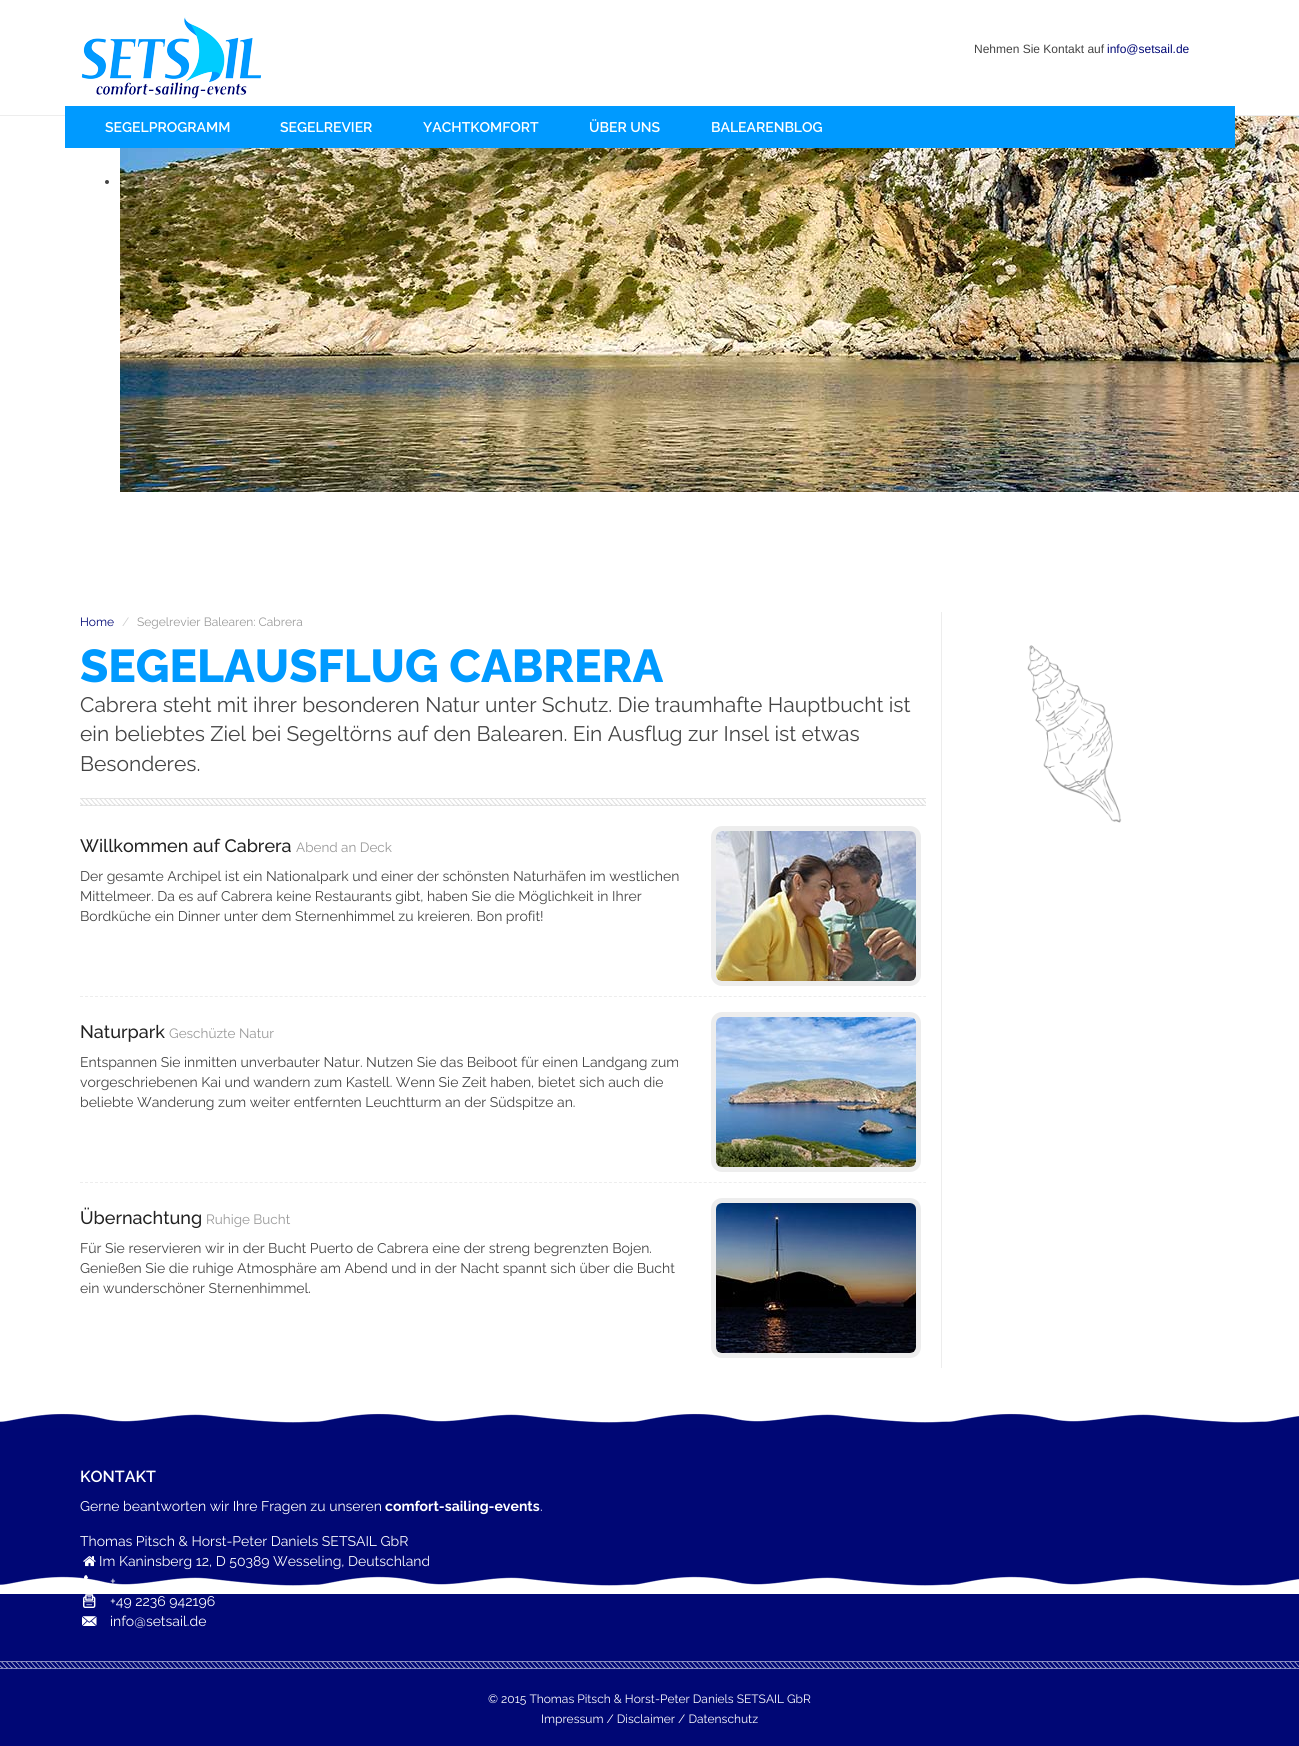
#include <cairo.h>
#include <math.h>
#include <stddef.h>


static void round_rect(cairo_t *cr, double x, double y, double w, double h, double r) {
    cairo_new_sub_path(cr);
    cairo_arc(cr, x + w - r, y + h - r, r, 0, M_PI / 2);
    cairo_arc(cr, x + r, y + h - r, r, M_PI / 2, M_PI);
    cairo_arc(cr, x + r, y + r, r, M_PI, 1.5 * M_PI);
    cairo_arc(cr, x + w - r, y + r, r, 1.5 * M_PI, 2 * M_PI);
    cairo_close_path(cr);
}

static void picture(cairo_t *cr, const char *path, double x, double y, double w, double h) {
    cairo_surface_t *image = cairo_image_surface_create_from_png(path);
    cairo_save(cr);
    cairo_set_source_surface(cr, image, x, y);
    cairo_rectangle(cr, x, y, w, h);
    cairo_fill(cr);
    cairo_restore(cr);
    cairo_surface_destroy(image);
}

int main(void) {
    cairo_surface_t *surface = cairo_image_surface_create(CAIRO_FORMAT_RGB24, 1299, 1746);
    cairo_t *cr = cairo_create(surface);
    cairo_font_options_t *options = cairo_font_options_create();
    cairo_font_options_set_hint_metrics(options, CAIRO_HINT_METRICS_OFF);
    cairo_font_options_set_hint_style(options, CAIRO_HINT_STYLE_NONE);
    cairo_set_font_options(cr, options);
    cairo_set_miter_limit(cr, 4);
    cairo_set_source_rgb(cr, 1, 1, 1);
    cairo_paint(cr);
    cairo_set_source_rgb(cr, 0.929, 0.929, 0.929);
    cairo_rectangle(cr, 0, 115, 1299, 1);
    cairo_fill(cr);
    picture(cr, "img1.png", 81, 17, 181, 82);
    cairo_select_font_face(cr, "Liberation Sans", CAIRO_FONT_SLANT_NORMAL, CAIRO_FONT_WEIGHT_NORMAL);
    cairo_set_font_size(cr, 12);
    cairo_set_source_rgb(cr, 0.267, 0.267, 0.267);
    cairo_move_to(cr, 974, 53);
    cairo_show_text(cr, "Nehmen Sie Kontakt auf");
    cairo_set_source_rgb(cr, 0, 0.031, 0.459);
    cairo_move_to(cr, 1107, 53);
    cairo_show_text(cr, "info@setsail.de");
    picture(cr, "img2.png", 120, 116, 1179, 376);
    cairo_set_source_rgb(cr, 0, 0.604, 1);
    cairo_rectangle(cr, 65, 106, 1170, 42);
    cairo_fill(cr);
    cairo_select_font_face(cr, "Raleway SemiBold", CAIRO_FONT_SLANT_NORMAL, CAIRO_FONT_WEIGHT_NORMAL);
    cairo_set_font_size(cr, 14);
    cairo_set_source_rgb(cr, 1, 1, 1);
    cairo_move_to(cr, 105, 132);
    cairo_show_text(cr, "SEGELPROGRAMM");
    cairo_move_to(cr, 280, 132);
    cairo_show_text(cr, "SEGELREVIER");
    cairo_move_to(cr, 423, 132);
    cairo_show_text(cr, "YACHTKOMFORT");
    cairo_move_to(cr, 589, 132);
    cairo_show_text(cr, "ÜBER UNS");
    cairo_move_to(cr, 711, 132);
    cairo_show_text(cr, "BALEARENBLOG");
    cairo_set_source_rgb(cr, 0.267, 0.267, 0.267);
    cairo_new_path(cr);
    cairo_arc(cr, 107, 182, 2, 0, 2 * M_PI);
    cairo_fill(cr);
    cairo_set_source_rgb(cr, 0, 0.031, 0.459);
    cairo_rectangle(cr, 0, 1428, 1299, 318);
    cairo_fill(cr);
    picture(cr, "img11.png", 84, 1575, 4, 4);
    cairo_select_font_face(cr, "Raleway", CAIRO_FONT_SLANT_NORMAL, CAIRO_FONT_WEIGHT_NORMAL);
    cairo_set_source_rgb(cr, 1, 1, 1);
    cairo_move_to(cr, 110, 1586);
    cairo_show_text(cr, "+");
    picture(cr, "img3.png", 0, 1576, 1299, 18);
    cairo_set_source_rgb(cr, 0.929, 0.929, 0.929);
    cairo_rectangle(cr, 941, 612, 1, 756);
    cairo_fill(cr);
    cairo_set_font_size(cr, 12);
    cairo_set_source_rgb(cr, 0, 0.031, 0.459);
    cairo_move_to(cr, 80, 626);
    cairo_show_text(cr, "Home");
    cairo_set_source_rgb(cr, 0.8, 0.8, 0.8);
    cairo_move_to(cr, 122, 626);
    cairo_show_text(cr, "/");
    cairo_set_source_rgb(cr, 0.6, 0.6, 0.6);
    cairo_move_to(cr, 137, 626);
    cairo_show_text(cr, "Segelrevier Balearen: Cabrera");
    cairo_select_font_face(cr, "Raleway ExtraBold", CAIRO_FONT_SLANT_NORMAL, CAIRO_FONT_WEIGHT_NORMAL);
    cairo_set_font_size(cr, 46);
    cairo_set_source_rgb(cr, 0, 0.604, 1);
    cairo_move_to(cr, 80, 682);
    cairo_show_text(cr, "SEGELAUSFLUG CABRERA");
    cairo_select_font_face(cr, "Raleway", CAIRO_FONT_SLANT_NORMAL, CAIRO_FONT_WEIGHT_NORMAL);
    cairo_set_font_size(cr, 21);
    cairo_set_source_rgb(cr, 0.267, 0.267, 0.267);
    cairo_move_to(cr, 80, 712);
    cairo_show_text(cr, "Cabrera steht mit ihrer besonderen Natur unter Schutz. Die traumhafte Hauptbucht ist");
    cairo_move_to(cr, 80, 741);
    cairo_show_text(cr, "ein beliebtes Ziel bei Segeltörns auf den Balearen. Ein Ausflug zur Insel ist etwas");
    cairo_move_to(cr, 80, 771);
    cairo_show_text(cr, "Besonderes.");
    picture(cr, "img4.png", 80, 798, 846, 8);
    cairo_new_path(cr);
    cairo_move_to(cr, 80, 996.5);
    cairo_line_to(cr, 926, 996.5);
    cairo_set_source_rgb(cr, 0.929, 0.929, 0.929);
    cairo_set_line_width(cr, 1);
    cairo_set_dash(cr, (double[]){3, 1.99}, 2, 0);
    cairo_stroke(cr);
    cairo_select_font_face(cr, "Raleway Medium", CAIRO_FONT_SLANT_NORMAL, CAIRO_FONT_WEIGHT_NORMAL);
    cairo_set_font_size(cr, 18);
    cairo_set_source_rgb(cr, 0.133, 0.133, 0.133);
    cairo_move_to(cr, 80, 852);
    cairo_show_text(cr, "Willkommen auf Cabrera");
    cairo_select_font_face(cr, "Raleway", CAIRO_FONT_SLANT_NORMAL, CAIRO_FONT_WEIGHT_NORMAL);
    cairo_set_font_size(cr, 13.5);
    cairo_set_source_rgb(cr, 0.6, 0.6, 0.6);
    cairo_move_to(cr, 296, 852);
    cairo_show_text(cr, "Abend an Deck");
    cairo_set_font_size(cr, 14);
    cairo_set_source_rgb(cr, 0.267, 0.267, 0.267);
    cairo_move_to(cr, 80, 881);
    cairo_show_text(cr, "Der gesamte Archipel ist ein Nationalpark und einer der schönsten Naturhäfen im westlichen");
    cairo_move_to(cr, 80, 901);
    cairo_show_text(cr, "Mittelmeer. Da es auf Cabrera keine Restaurants gibt, haben Sie die Möglichkeit in Ihrer");
    cairo_move_to(cr, 80, 921);
    cairo_show_text(cr, "Bordküche ein Dinner unter dem Sternenhimmel zu kreieren. Bon profit!");
    round_rect(cr, 713.5, 828.5, 205, 155, 8.5);
    cairo_set_source_rgb(cr, 0.929, 0.929, 0.929);
    cairo_set_line_width(cr, 5);
    cairo_set_dash(cr, NULL, 0, 0);
    cairo_stroke(cr);
    picture(cr, "img5.png", 716, 831, 200, 150);
    cairo_new_path(cr);
    cairo_move_to(cr, 80, 1182.5);
    cairo_line_to(cr, 926, 1182.5);
    cairo_set_line_width(cr, 1);
    cairo_set_dash(cr, (double[]){3, 1.99}, 2, 0);
    cairo_stroke(cr);
    cairo_select_font_face(cr, "Raleway Medium", CAIRO_FONT_SLANT_NORMAL, CAIRO_FONT_WEIGHT_NORMAL);
    cairo_set_font_size(cr, 18);
    cairo_set_source_rgb(cr, 0.133, 0.133, 0.133);
    cairo_move_to(cr, 80, 1038);
    cairo_show_text(cr, "Naturpark");
    cairo_select_font_face(cr, "Raleway", CAIRO_FONT_SLANT_NORMAL, CAIRO_FONT_WEIGHT_NORMAL);
    cairo_set_font_size(cr, 13.5);
    cairo_set_source_rgb(cr, 0.6, 0.6, 0.6);
    cairo_move_to(cr, 169, 1038);
    cairo_show_text(cr, "Geschüzte Natur");
    cairo_set_font_size(cr, 14);
    cairo_set_source_rgb(cr, 0.267, 0.267, 0.267);
    cairo_move_to(cr, 80, 1067);
    cairo_show_text(cr, "Entspannen Sie inmitten unverbauter Natur. Nutzen Sie das Beiboot für einen Landgang zum");
    cairo_move_to(cr, 80, 1087);
    cairo_show_text(cr, "vorgeschriebenen Kai und wandern zum Kastell. Wenn Sie Zeit haben, bietet sich auch die");
    cairo_move_to(cr, 80, 1107);
    cairo_show_text(cr, "beliebte Wanderung zum weiter entfernten Leuchtturm an der Südspitze an.");
    round_rect(cr, 713.5, 1014.5, 205, 155, 8.5);
    cairo_set_source_rgb(cr, 0.929, 0.929, 0.929);
    cairo_set_line_width(cr, 5);
    cairo_set_dash(cr, NULL, 0, 0);
    cairo_stroke(cr);
    picture(cr, "img6.png", 716, 1017, 200, 150);
    cairo_select_font_face(cr, "Raleway Medium", CAIRO_FONT_SLANT_NORMAL, CAIRO_FONT_WEIGHT_NORMAL);
    cairo_set_font_size(cr, 18);
    cairo_set_source_rgb(cr, 0.133, 0.133, 0.133);
    cairo_move_to(cr, 80, 1224);
    cairo_show_text(cr, "Übernachtung");
    cairo_select_font_face(cr, "Raleway", CAIRO_FONT_SLANT_NORMAL, CAIRO_FONT_WEIGHT_NORMAL);
    cairo_set_font_size(cr, 13.5);
    cairo_set_source_rgb(cr, 0.6, 0.6, 0.6);
    cairo_move_to(cr, 206, 1224);
    cairo_show_text(cr, "Ruhige Bucht");
    cairo_set_font_size(cr, 14);
    cairo_set_source_rgb(cr, 0.267, 0.267, 0.267);
    cairo_move_to(cr, 80, 1253);
    cairo_show_text(cr, "Für Sie reservieren wir in der Bucht Puerto de Cabrera eine der streng begrenzten Bojen.");
    cairo_move_to(cr, 80, 1273);
    cairo_show_text(cr, "Genießen Sie die ruhige Atmosphäre am Abend und in der Nacht spannt sich über die Bucht");
    cairo_move_to(cr, 80, 1293);
    cairo_show_text(cr, "ein wunderschöner Sternenhimmel.");
    round_rect(cr, 713.5, 1200.5, 205, 155, 8.5);
    cairo_set_source_rgb(cr, 0.929, 0.929, 0.929);
    cairo_stroke(cr);
    picture(cr, "img7.png", 716, 1203, 200, 150);
    picture(cr, "img8.png", 1027, 645, 95, 178);
    picture(cr, "img9.png", 0, 1413, 1299, 15);
    cairo_select_font_face(cr, "Raleway SemiBold", CAIRO_FONT_SLANT_NORMAL, CAIRO_FONT_WEIGHT_NORMAL);
    cairo_set_font_size(cr, 16);
    cairo_set_source_rgb(cr, 1, 1, 1);
    cairo_move_to(cr, 80, 1482);
    cairo_show_text(cr, "KONTAKT");
    cairo_select_font_face(cr, "Raleway", CAIRO_FONT_SLANT_NORMAL, CAIRO_FONT_WEIGHT_NORMAL);
    cairo_set_font_size(cr, 14);
    cairo_move_to(cr, 80, 1511);
    cairo_show_text(cr, "Gerne beantworten wir Ihre Fragen zu unseren");
    cairo_select_font_face(cr, "Raleway", CAIRO_FONT_SLANT_NORMAL, CAIRO_FONT_WEIGHT_BOLD);
    cairo_move_to(cr, 385, 1511);
    cairo_show_text(cr, "comfort-sailing-events");
    cairo_select_font_face(cr, "Raleway", CAIRO_FONT_SLANT_NORMAL, CAIRO_FONT_WEIGHT_NORMAL);
    cairo_move_to(cr, 540, 1511);
    cairo_show_text(cr, ".");
    cairo_move_to(cr, 80, 1546);
    cairo_show_text(cr, "Thomas Pitsch & Horst-Peter Daniels SETSAIL GbR");
    picture(cr, "img10.png", 83, 1556, 13, 11);
    cairo_move_to(cr, 99, 1566);
    cairo_show_text(cr, "Im Kaninsberg 12, D 50389 Wesseling, Deutschland");
    picture(cr, "img12.png", 83, 1594, 13, 14);
    cairo_move_to(cr, 110, 1606);
    cairo_show_text(cr, "+49 2236 942196");
    picture(cr, "img13.png", 82, 1616, 15, 10);
    cairo_move_to(cr, 110, 1626);
    cairo_show_text(cr, "info@setsail.de");
    picture(cr, "img14.png", 0, 1661, 1299, 8);
    cairo_set_font_size(cr, 12);
    cairo_move_to(cr, 488, 1703);
    cairo_show_text(cr, "© 2015 Thomas Pitsch & Horst-Peter Daniels SETSAIL GbR");
    cairo_move_to(cr, 541, 1723);
    cairo_show_text(cr, "Impressum / Disclaimer / Datenschutz");
    cairo_surface_write_to_png(surface, "page.png");
    cairo_font_options_destroy(options);
    cairo_destroy(cr);
    cairo_surface_destroy(surface);
    return 0;
}
